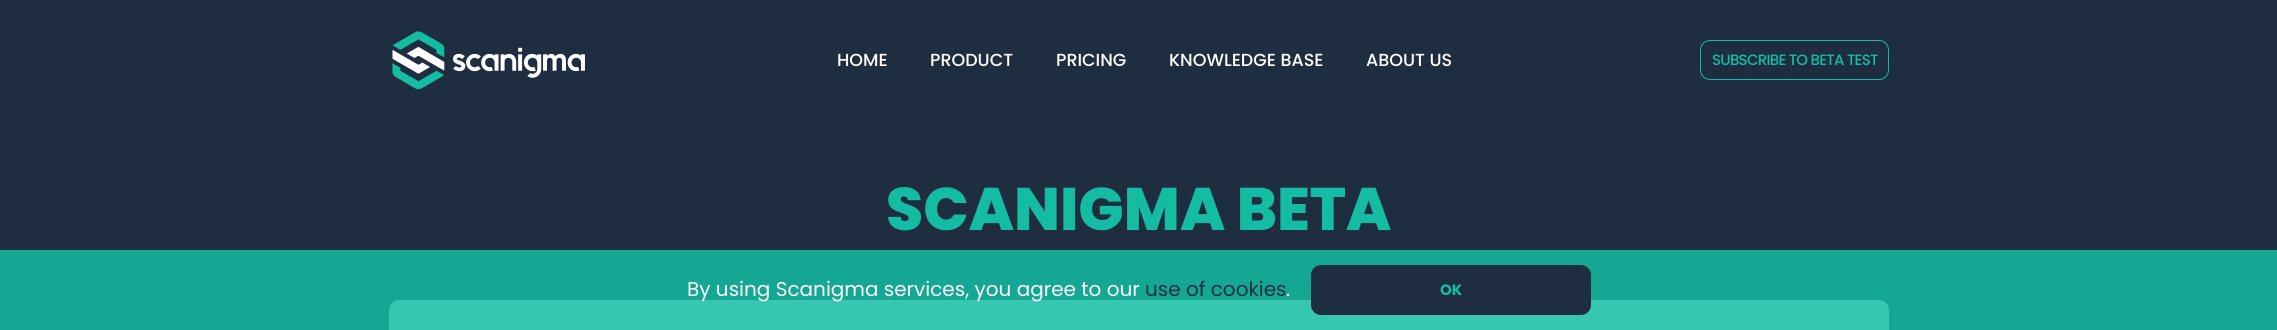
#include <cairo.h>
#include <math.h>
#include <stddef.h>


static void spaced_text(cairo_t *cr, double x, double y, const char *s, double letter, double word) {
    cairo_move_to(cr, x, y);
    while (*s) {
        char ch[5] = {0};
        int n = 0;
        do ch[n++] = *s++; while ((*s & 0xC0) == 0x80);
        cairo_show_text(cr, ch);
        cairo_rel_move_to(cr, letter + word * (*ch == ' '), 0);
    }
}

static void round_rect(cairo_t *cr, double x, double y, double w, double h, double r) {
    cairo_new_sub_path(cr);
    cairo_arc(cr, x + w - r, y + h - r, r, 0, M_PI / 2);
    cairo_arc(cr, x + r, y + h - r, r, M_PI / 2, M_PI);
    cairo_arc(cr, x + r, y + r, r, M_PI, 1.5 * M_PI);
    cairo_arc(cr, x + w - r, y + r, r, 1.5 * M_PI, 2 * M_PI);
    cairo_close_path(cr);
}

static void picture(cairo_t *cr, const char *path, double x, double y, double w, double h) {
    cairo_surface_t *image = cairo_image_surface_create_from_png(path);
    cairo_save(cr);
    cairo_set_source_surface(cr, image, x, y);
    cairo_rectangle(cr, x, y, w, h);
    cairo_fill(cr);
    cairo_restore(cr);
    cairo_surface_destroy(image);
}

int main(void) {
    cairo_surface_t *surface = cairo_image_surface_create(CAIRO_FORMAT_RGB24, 2277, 330);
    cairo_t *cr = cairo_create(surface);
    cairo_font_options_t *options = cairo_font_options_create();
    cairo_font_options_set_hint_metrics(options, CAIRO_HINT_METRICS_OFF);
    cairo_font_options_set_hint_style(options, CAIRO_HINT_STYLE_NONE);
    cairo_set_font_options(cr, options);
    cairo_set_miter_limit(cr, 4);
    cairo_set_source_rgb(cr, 0.118, 0.176, 0.251);
    cairo_paint(cr);
    cairo_set_source_rgb(cr, 0.082, 0.655, 0.58);
    cairo_rectangle(cr, 0, 250, 2277, 80);
    cairo_fill(cr);
    picture(cr, "img1.png", 392, 31, 193, 59);
    cairo_select_font_face(cr, "Poppins Medium", CAIRO_FONT_SLANT_NORMAL, CAIRO_FONT_WEIGHT_NORMAL);
    cairo_set_font_size(cr, 17.5);
    cairo_set_source_rgb(cr, 1, 1, 1);
    cairo_move_to(cr, 837, 66);
    cairo_show_text(cr, "HOME");
    cairo_move_to(cr, 930, 66);
    cairo_show_text(cr, "PRODUCT");
    cairo_move_to(cr, 1056, 66);
    cairo_show_text(cr, "PRICING");
    cairo_move_to(cr, 1169, 66);
    cairo_show_text(cr, "KNOWLEDGE BASE");
    cairo_move_to(cr, 1366, 66);
    cairo_show_text(cr, "ABOUT US");
    round_rect(cr, 1700.5, 40.5, 188, 39, 9.5);
    cairo_set_source_rgb(cr, 0.075, 0.737, 0.639);
    cairo_set_line_width(cr, 1);
    cairo_stroke(cr);
    cairo_set_font_size(cr, 15);
    spaced_text(cr, 1712, 65, "SUBSCRIBE TO BETA TEST", -0.75, 0);
    cairo_select_font_face(cr, "Poppins ExtraBold", CAIRO_FONT_SLANT_NORMAL, CAIRO_FONT_WEIGHT_NORMAL);
    cairo_set_font_size(cr, 60);
    cairo_move_to(cr, 886, 230);
    cairo_show_text(cr, "SCANIGMA BETA");
    cairo_set_source_rgb(cr, 0.212, 0.776, 0.694);
    round_rect(cr, 389, 300, 1500, 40, 10);
    cairo_fill(cr);
    cairo_select_font_face(cr, "Poppins", CAIRO_FONT_SLANT_NORMAL, CAIRO_FONT_WEIGHT_NORMAL);
    cairo_set_font_size(cr, 20);
    cairo_set_source_rgb(cr, 1, 1, 1);
    cairo_move_to(cr, 687, 296);
    cairo_show_text(cr, "By using Scanigma services, you agree to our");
    cairo_set_source_rgb(cr, 0.118, 0.176, 0.251);
    cairo_move_to(cr, 1145, 296);
    cairo_show_text(cr, "use of cookies");
    cairo_set_source_rgb(cr, 1, 1, 1);
    cairo_move_to(cr, 1286, 296);
    cairo_show_text(cr, ".");
    cairo_set_source_rgb(cr, 0.118, 0.176, 0.251);
    round_rect(cr, 1311, 265, 280, 50, 10);
    cairo_fill(cr);
    cairo_select_font_face(cr, "Poppins", CAIRO_FONT_SLANT_NORMAL, CAIRO_FONT_WEIGHT_BOLD);
    cairo_set_font_size(cr, 15);
    cairo_set_source_rgb(cr, 0.075, 0.737, 0.639);
    cairo_move_to(cr, 1440, 295);
    cairo_show_text(cr, "OK");
    cairo_surface_write_to_png(surface, "page.png");
    cairo_font_options_destroy(options);
    cairo_destroy(cr);
    cairo_surface_destroy(surface);
    return 0;
}
